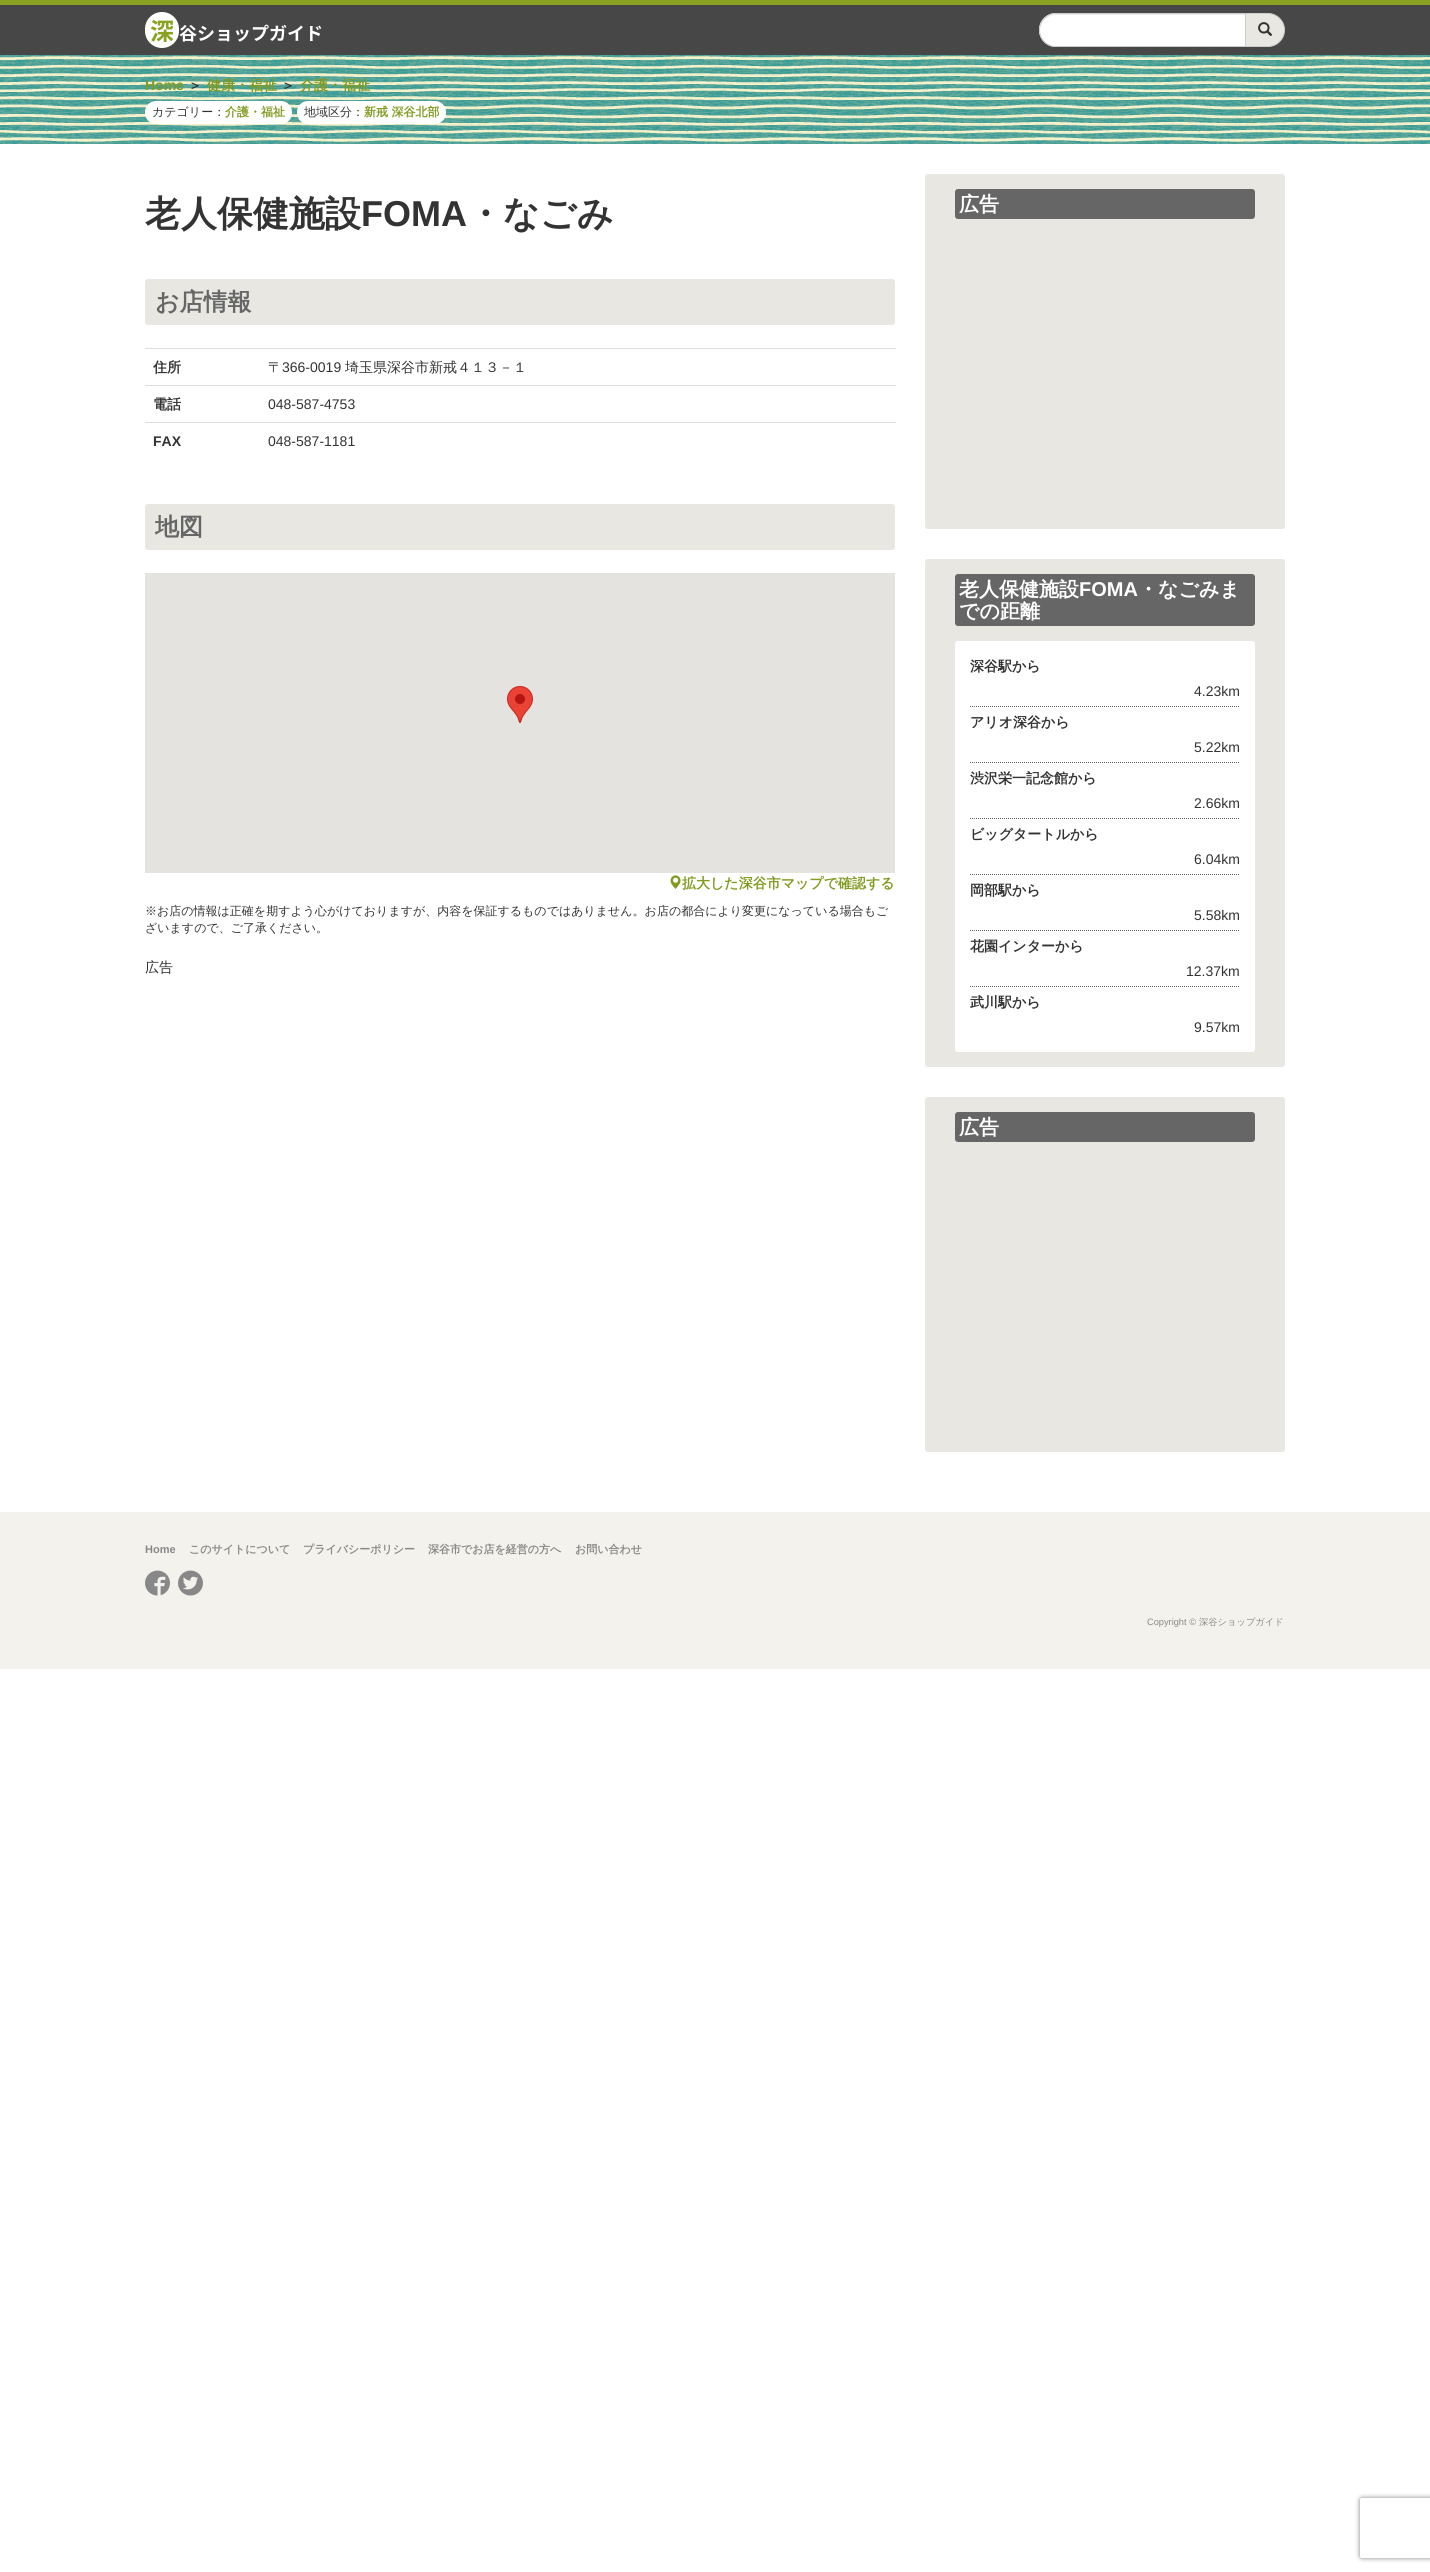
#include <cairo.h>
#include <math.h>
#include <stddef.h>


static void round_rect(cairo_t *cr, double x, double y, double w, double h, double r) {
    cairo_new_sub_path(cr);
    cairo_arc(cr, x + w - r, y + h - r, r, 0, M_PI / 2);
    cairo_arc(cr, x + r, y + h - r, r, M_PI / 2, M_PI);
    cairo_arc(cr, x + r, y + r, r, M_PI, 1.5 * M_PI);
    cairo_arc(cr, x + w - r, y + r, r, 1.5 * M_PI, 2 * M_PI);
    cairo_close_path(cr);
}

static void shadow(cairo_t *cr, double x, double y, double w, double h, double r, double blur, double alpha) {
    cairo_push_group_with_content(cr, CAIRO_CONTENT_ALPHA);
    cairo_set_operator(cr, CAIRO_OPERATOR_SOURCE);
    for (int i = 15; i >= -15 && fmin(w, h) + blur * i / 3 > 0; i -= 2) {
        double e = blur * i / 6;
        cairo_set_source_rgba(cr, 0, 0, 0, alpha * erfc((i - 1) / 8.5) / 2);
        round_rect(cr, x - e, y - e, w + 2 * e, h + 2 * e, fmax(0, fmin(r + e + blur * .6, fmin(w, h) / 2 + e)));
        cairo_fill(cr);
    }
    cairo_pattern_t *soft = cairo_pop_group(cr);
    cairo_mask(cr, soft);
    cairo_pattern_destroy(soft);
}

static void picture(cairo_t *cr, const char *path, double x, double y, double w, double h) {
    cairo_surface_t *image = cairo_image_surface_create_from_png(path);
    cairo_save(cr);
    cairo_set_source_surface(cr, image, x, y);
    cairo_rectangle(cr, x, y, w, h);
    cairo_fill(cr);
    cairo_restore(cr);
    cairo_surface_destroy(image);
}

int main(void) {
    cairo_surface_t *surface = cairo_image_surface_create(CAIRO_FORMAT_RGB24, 1430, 2572);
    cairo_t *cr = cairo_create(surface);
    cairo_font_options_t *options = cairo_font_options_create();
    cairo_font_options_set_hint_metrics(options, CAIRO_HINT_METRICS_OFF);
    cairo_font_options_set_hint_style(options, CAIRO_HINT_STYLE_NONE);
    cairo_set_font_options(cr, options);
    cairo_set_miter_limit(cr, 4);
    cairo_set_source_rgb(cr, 1, 1, 1);
    cairo_paint(cr);
    cairo_set_source_rgb(cr, 0.278, 0.278, 0.278);
    cairo_rectangle(cr, 0, 5, 1430, 50);
    cairo_fill(cr);
    cairo_set_source_rgb(cr, 0.537, 0.635, 0.133);
    cairo_rectangle(cr, 0, 0, 1430, 5);
    cairo_fill(cr);
    cairo_set_source_rgb(cr, 1, 1, 1);
    round_rect(cr, 145, 12, 34, 36, 17);
    cairo_fill(cr);
    cairo_select_font_face(cr, "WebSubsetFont", CAIRO_FONT_SLANT_NORMAL, CAIRO_FONT_WEIGHT_BOLD);
    cairo_set_font_size(cr, 24);
    cairo_set_source_rgb(cr, 0.537, 0.635, 0.133);
    cairo_move_to(cr, 150, 40);
    cairo_show_text(cr, "深");
    cairo_set_font_size(cr, 18);
    cairo_set_source_rgb(cr, 1, 1, 1);
    cairo_move_to(cr, 179, 40);
    cairo_show_text(cr, "谷ショップガイド");
    cairo_new_path(cr);
    cairo_move_to(cr, 1056, 13);
    cairo_line_to(cr, 1246, 13);
    cairo_line_to(cr, 1246, 47);
    cairo_line_to(cr, 1056, 47);
    cairo_curve_to(cr, 1046.5, 47, 1039, 39.5, 1039, 30);
    cairo_curve_to(cr, 1039, 20.5, 1046.5, 13, 1056, 13);
    cairo_close_path(cr);
    cairo_fill(cr);
    cairo_set_source_rgb(cr, 0.925, 0.925, 0.925);
    cairo_new_path(cr);
    cairo_move_to(cr, 1056, 15);
    cairo_line_to(cr, 1245, 15);
    cairo_line_to(cr, 1245, 14);
    cairo_line_to(cr, 1088, 14);
    cairo_curve_to(cr, 1076, 14, 1039, 7, 1040, 30);
    cairo_curve_to(cr, 1040, 22, 1047, 15, 1056, 15);
    cairo_close_path(cr);
    cairo_fill(cr);
    cairo_new_path(cr);
    cairo_move_to(cr, 1056, 13.5);
    cairo_line_to(cr, 1245.5, 13.5);
    cairo_line_to(cr, 1245.5, 46.5);
    cairo_line_to(cr, 1056, 46.5);
    cairo_curve_to(cr, 1047, 46.5, 1039.5, 39, 1039.5, 30);
    cairo_curve_to(cr, 1039.5, 21, 1047, 13.5, 1056, 13.5);
    cairo_close_path(cr);
    cairo_set_source_rgb(cr, 0.8, 0.8, 0.8);
    cairo_set_line_width(cr, 1);
    cairo_stroke(cr);
    cairo_set_source_rgb(cr, 0.91, 0.906, 0.886);
    cairo_new_path(cr);
    cairo_move_to(cr, 1245.5, 13.5);
    cairo_line_to(cr, 1268, 13.5);
    cairo_curve_to(cr, 1277, 13.5, 1284.5, 21, 1284.5, 30);
    cairo_curve_to(cr, 1284.5, 39, 1277, 46.5, 1268, 46.5);
    cairo_line_to(cr, 1245.5, 46.5);
    cairo_close_path(cr);
    cairo_fill_preserve(cr);
    cairo_set_source_rgb(cr, 0.8, 0.8, 0.8);
    cairo_stroke(cr);
    picture(cr, "img1.png", 1258, 22, 15, 14);
    picture(cr, "img2.png", 0, 55, 1430, 89);
    cairo_select_font_face(cr, "Liberation Sans", CAIRO_FONT_SLANT_NORMAL, CAIRO_FONT_WEIGHT_BOLD);
    cairo_set_font_size(cr, 14);
    cairo_set_source_rgb(cr, 0.506, 0.604, 0.125);
    cairo_move_to(cr, 145, 90);
    cairo_show_text(cr, "Home");
    cairo_select_font_face(cr, "WenQuanYi Zen Hei", CAIRO_FONT_SLANT_NORMAL, CAIRO_FONT_WEIGHT_BOLD);
    cairo_set_source_rgb(cr, 0.2, 0.2, 0.2);
    cairo_move_to(cr, 188, 90);
    cairo_show_text(cr, "＞");
    cairo_set_source_rgb(cr, 0.506, 0.604, 0.125);
    cairo_move_to(cr, 207, 90);
    cairo_show_text(cr, "健康・福祉");
    cairo_set_source_rgb(cr, 0.2, 0.2, 0.2);
    cairo_move_to(cr, 281, 90);
    cairo_show_text(cr, "＞");
    cairo_set_source_rgb(cr, 0.506, 0.604, 0.125);
    cairo_move_to(cr, 300, 90);
    cairo_show_text(cr, "介護・福祉");
    cairo_set_source_rgb(cr, 1, 1, 1);
    round_rect(cr, 145, 101, 147, 23, 11);
    cairo_fill(cr);
    cairo_select_font_face(cr, "WenQuanYi Zen Hei Medium", CAIRO_FONT_SLANT_NORMAL, CAIRO_FONT_WEIGHT_NORMAL);
    cairo_set_font_size(cr, 12);
    cairo_set_source_rgb(cr, 0.2, 0.2, 0.2);
    cairo_move_to(cr, 152, 116);
    cairo_show_text(cr, "カテゴリー：");
    cairo_select_font_face(cr, "WenQuanYi Zen Hei", CAIRO_FONT_SLANT_NORMAL, CAIRO_FONT_WEIGHT_BOLD);
    cairo_set_source_rgb(cr, 0.506, 0.604, 0.125);
    cairo_move_to(cr, 225, 116);
    cairo_show_text(cr, "介護・福祉");
    cairo_set_source_rgb(cr, 1, 1, 1);
    round_rect(cr, 297, 101, 149, 23, 11);
    cairo_fill(cr);
    cairo_select_font_face(cr, "WenQuanYi Zen Hei Medium", CAIRO_FONT_SLANT_NORMAL, CAIRO_FONT_WEIGHT_NORMAL);
    cairo_set_source_rgb(cr, 0.2, 0.2, 0.2);
    cairo_move_to(cr, 304, 116);
    cairo_show_text(cr, "地域区分：");
    cairo_select_font_face(cr, "WenQuanYi Zen Hei", CAIRO_FONT_SLANT_NORMAL, CAIRO_FONT_WEIGHT_BOLD);
    cairo_set_source_rgb(cr, 0.506, 0.604, 0.125);
    cairo_move_to(cr, 364, 116);
    cairo_show_text(cr, "新戒 深谷北部");
    cairo_set_font_size(cr, 36);
    cairo_set_source_rgb(cr, 0.2, 0.2, 0.2);
    cairo_move_to(cr, 145, 226);
    cairo_show_text(cr, "老人保健施設");
    cairo_select_font_face(cr, "Liberation Sans", CAIRO_FONT_SLANT_NORMAL, CAIRO_FONT_WEIGHT_BOLD);
    cairo_move_to(cr, 361, 226);
    cairo_show_text(cr, "FOMA");
    cairo_select_font_face(cr, "WenQuanYi Zen Hei", CAIRO_FONT_SLANT_NORMAL, CAIRO_FONT_WEIGHT_BOLD);
    cairo_move_to(cr, 467, 226);
    cairo_show_text(cr, "・なごみ");
    cairo_set_source_rgb(cr, 0.91, 0.906, 0.886);
    round_rect(cr, 145, 279, 750, 46, 3);
    cairo_fill(cr);
    cairo_set_font_size(cr, 24);
    cairo_set_source_rgb(cr, 0.4, 0.4, 0.4);
    cairo_move_to(cr, 155, 310);
    cairo_show_text(cr, "お店情報");
    cairo_set_font_size(cr, 14);
    cairo_set_source_rgb(cr, 0.2, 0.2, 0.2);
    cairo_move_to(cr, 153, 372);
    cairo_show_text(cr, "住所");
    cairo_set_source_rgb(cr, 0.867, 0.867, 0.867);
    cairo_rectangle(cr, 145, 348, 751, 1);
    cairo_fill(cr);
    cairo_select_font_face(cr, "WenQuanYi Zen Hei Medium", CAIRO_FONT_SLANT_NORMAL, CAIRO_FONT_WEIGHT_NORMAL);
    cairo_set_source_rgb(cr, 0.2, 0.2, 0.2);
    cairo_move_to(cr, 268, 372);
    cairo_show_text(cr, "〒");
    cairo_select_font_face(cr, "Liberation Sans", CAIRO_FONT_SLANT_NORMAL, CAIRO_FONT_WEIGHT_NORMAL);
    cairo_move_to(cr, 282, 372);
    cairo_show_text(cr, "366-0019");
    cairo_select_font_face(cr, "WenQuanYi Zen Hei Medium", CAIRO_FONT_SLANT_NORMAL, CAIRO_FONT_WEIGHT_NORMAL);
    cairo_move_to(cr, 345, 372);
    cairo_show_text(cr, "埼玉県深谷市新戒４１３－１");
    cairo_select_font_face(cr, "WenQuanYi Zen Hei", CAIRO_FONT_SLANT_NORMAL, CAIRO_FONT_WEIGHT_BOLD);
    cairo_move_to(cr, 153, 409);
    cairo_show_text(cr, "電話");
    cairo_set_source_rgb(cr, 0.867, 0.867, 0.867);
    cairo_rectangle(cr, 145, 385, 751, 1);
    cairo_fill(cr);
    cairo_select_font_face(cr, "Liberation Sans", CAIRO_FONT_SLANT_NORMAL, CAIRO_FONT_WEIGHT_NORMAL);
    cairo_set_source_rgb(cr, 0.2, 0.2, 0.2);
    cairo_move_to(cr, 268, 409);
    cairo_show_text(cr, "048-587-4753");
    cairo_select_font_face(cr, "Liberation Sans", CAIRO_FONT_SLANT_NORMAL, CAIRO_FONT_WEIGHT_BOLD);
    cairo_move_to(cr, 153, 446);
    cairo_show_text(cr, "FAX");
    cairo_set_source_rgb(cr, 0.867, 0.867, 0.867);
    cairo_rectangle(cr, 145, 422, 751, 1);
    cairo_fill(cr);
    cairo_select_font_face(cr, "Liberation Sans", CAIRO_FONT_SLANT_NORMAL, CAIRO_FONT_WEIGHT_NORMAL);
    cairo_set_source_rgb(cr, 0.2, 0.2, 0.2);
    cairo_move_to(cr, 268, 446);
    cairo_show_text(cr, "048-587-1181");
    cairo_set_source_rgb(cr, 0.91, 0.906, 0.886);
    round_rect(cr, 145, 504, 750, 46, 3);
    cairo_fill(cr);
    cairo_select_font_face(cr, "WenQuanYi Zen Hei", CAIRO_FONT_SLANT_NORMAL, CAIRO_FONT_WEIGHT_BOLD);
    cairo_set_font_size(cr, 24);
    cairo_set_source_rgb(cr, 0.4, 0.4, 0.4);
    cairo_move_to(cr, 155, 535);
    cairo_show_text(cr, "地図");
    cairo_set_source_rgb(cr, 0.898, 0.89, 0.875);
    cairo_rectangle(cr, 145, 573, 750, 300);
    cairo_fill(cr);
    picture(cr, "img3.png", 507, 686, 26, 37);
    picture(cr, "img4.png", 670, 875, 11, 14);
    cairo_set_font_size(cr, 14);
    cairo_set_source_rgb(cr, 0.506, 0.604, 0.125);
    cairo_move_to(cr, 682, 888);
    cairo_show_text(cr, "拡大した深谷市マップで確認する");
    cairo_select_font_face(cr, "WenQuanYi Zen Hei Medium", CAIRO_FONT_SLANT_NORMAL, CAIRO_FONT_WEIGHT_NORMAL);
    cairo_set_font_size(cr, 12);
    cairo_set_source_rgb(cr, 0.2, 0.2, 0.2);
    cairo_move_to(cr, 145, 915);
    cairo_show_text(cr, "※お店の情報は正確を期すよう心がけておりますが、内容を保証するものではありません。お店の都合により変更になっている場合もご");
    cairo_move_to(cr, 145, 932);
    cairo_show_text(cr, "ざいますので、ご了承ください。");
    cairo_set_font_size(cr, 14);
    cairo_move_to(cr, 145, 972);
    cairo_show_text(cr, "広告");
    cairo_set_source_rgb(cr, 0.91, 0.906, 0.886);
    round_rect(cr, 925, 174, 360, 355, 3);
    cairo_fill(cr);
    cairo_set_source_rgb(cr, 0.4, 0.4, 0.4);
    round_rect(cr, 955, 189, 300, 30, 3);
    cairo_fill(cr);
    cairo_select_font_face(cr, "WenQuanYi Zen Hei", CAIRO_FONT_SLANT_NORMAL, CAIRO_FONT_WEIGHT_BOLD);
    cairo_set_font_size(cr, 20);
    cairo_set_source_rgb(cr, 1, 1, 1);
    cairo_move_to(cr, 959, 211);
    cairo_show_text(cr, "広告");
    cairo_set_source_rgb(cr, 0.91, 0.906, 0.886);
    round_rect(cr, 925, 559, 360, 508, 3);
    cairo_fill(cr);
    cairo_set_source_rgb(cr, 0.4, 0.4, 0.4);
    round_rect(cr, 955, 574, 300, 52, 3);
    cairo_fill(cr);
    cairo_set_source_rgb(cr, 1, 1, 1);
    cairo_move_to(cr, 959, 596);
    cairo_show_text(cr, "老人保健施設");
    cairo_select_font_face(cr, "Liberation Sans", CAIRO_FONT_SLANT_NORMAL, CAIRO_FONT_WEIGHT_BOLD);
    cairo_move_to(cr, 1079, 596);
    cairo_show_text(cr, "FOMA");
    cairo_select_font_face(cr, "WenQuanYi Zen Hei", CAIRO_FONT_SLANT_NORMAL, CAIRO_FONT_WEIGHT_BOLD);
    cairo_move_to(cr, 1138, 596);
    cairo_show_text(cr, "・なごみま");
    cairo_move_to(cr, 959, 618);
    cairo_show_text(cr, "での距離");
    round_rect(cr, 955, 641, 300, 411, 3);
    cairo_fill(cr);
    cairo_set_font_size(cr, 14);
    cairo_set_source_rgb(cr, 0.2, 0.2, 0.2);
    cairo_move_to(cr, 970, 671);
    cairo_show_text(cr, "深谷駅から");
    cairo_select_font_face(cr, "Liberation Sans", CAIRO_FONT_SLANT_NORMAL, CAIRO_FONT_WEIGHT_NORMAL);
    cairo_move_to(cr, 1194, 696);
    cairo_show_text(cr, "4.23km");
    cairo_new_path(cr);
    cairo_move_to(cr, 970, 706.5);
    cairo_line_to(cr, 1240, 706.5);
    cairo_set_source_rgb(cr, 0.4, 0.4, 0.4);
    cairo_set_dash(cr, (double[]){1, 1}, 2, 0);
    cairo_stroke(cr);
    cairo_select_font_face(cr, "WenQuanYi Zen Hei", CAIRO_FONT_SLANT_NORMAL, CAIRO_FONT_WEIGHT_BOLD);
    cairo_set_source_rgb(cr, 0.2, 0.2, 0.2);
    cairo_move_to(cr, 970, 727);
    cairo_show_text(cr, "アリオ深谷から");
    cairo_select_font_face(cr, "Liberation Sans", CAIRO_FONT_SLANT_NORMAL, CAIRO_FONT_WEIGHT_NORMAL);
    cairo_move_to(cr, 1194, 752);
    cairo_show_text(cr, "5.22km");
    cairo_new_path(cr);
    cairo_move_to(cr, 970, 762.5);
    cairo_line_to(cr, 1240, 762.5);
    cairo_set_source_rgb(cr, 0.4, 0.4, 0.4);
    cairo_stroke(cr);
    cairo_select_font_face(cr, "WenQuanYi Zen Hei", CAIRO_FONT_SLANT_NORMAL, CAIRO_FONT_WEIGHT_BOLD);
    cairo_set_source_rgb(cr, 0.2, 0.2, 0.2);
    cairo_move_to(cr, 970, 783);
    cairo_show_text(cr, "渋沢栄一記念館から");
    cairo_select_font_face(cr, "Liberation Sans", CAIRO_FONT_SLANT_NORMAL, CAIRO_FONT_WEIGHT_NORMAL);
    cairo_move_to(cr, 1194, 808);
    cairo_show_text(cr, "2.66km");
    cairo_new_path(cr);
    cairo_move_to(cr, 970, 818.5);
    cairo_line_to(cr, 1240, 818.5);
    cairo_set_source_rgb(cr, 0.4, 0.4, 0.4);
    cairo_stroke(cr);
    cairo_select_font_face(cr, "WenQuanYi Zen Hei", CAIRO_FONT_SLANT_NORMAL, CAIRO_FONT_WEIGHT_BOLD);
    cairo_set_source_rgb(cr, 0.2, 0.2, 0.2);
    cairo_move_to(cr, 970, 839);
    cairo_show_text(cr, "ビッグタートルから");
    cairo_select_font_face(cr, "Liberation Sans", CAIRO_FONT_SLANT_NORMAL, CAIRO_FONT_WEIGHT_NORMAL);
    cairo_move_to(cr, 1194, 864);
    cairo_show_text(cr, "6.04km");
    cairo_new_path(cr);
    cairo_move_to(cr, 970, 874.5);
    cairo_line_to(cr, 1240, 874.5);
    cairo_set_source_rgb(cr, 0.4, 0.4, 0.4);
    cairo_stroke(cr);
    cairo_select_font_face(cr, "WenQuanYi Zen Hei", CAIRO_FONT_SLANT_NORMAL, CAIRO_FONT_WEIGHT_BOLD);
    cairo_set_source_rgb(cr, 0.2, 0.2, 0.2);
    cairo_move_to(cr, 970, 895);
    cairo_show_text(cr, "岡部駅から");
    cairo_select_font_face(cr, "Liberation Sans", CAIRO_FONT_SLANT_NORMAL, CAIRO_FONT_WEIGHT_NORMAL);
    cairo_move_to(cr, 1194, 920);
    cairo_show_text(cr, "5.58km");
    cairo_new_path(cr);
    cairo_move_to(cr, 970, 930.5);
    cairo_line_to(cr, 1240, 930.5);
    cairo_set_source_rgb(cr, 0.4, 0.4, 0.4);
    cairo_stroke(cr);
    cairo_select_font_face(cr, "WenQuanYi Zen Hei", CAIRO_FONT_SLANT_NORMAL, CAIRO_FONT_WEIGHT_BOLD);
    cairo_set_source_rgb(cr, 0.2, 0.2, 0.2);
    cairo_move_to(cr, 970, 951);
    cairo_show_text(cr, "花園インターから");
    cairo_select_font_face(cr, "Liberation Sans", CAIRO_FONT_SLANT_NORMAL, CAIRO_FONT_WEIGHT_NORMAL);
    cairo_move_to(cr, 1186, 976);
    cairo_show_text(cr, "12.37km");
    cairo_new_path(cr);
    cairo_move_to(cr, 970, 986.5);
    cairo_line_to(cr, 1240, 986.5);
    cairo_set_source_rgb(cr, 0.4, 0.4, 0.4);
    cairo_stroke(cr);
    cairo_select_font_face(cr, "WenQuanYi Zen Hei", CAIRO_FONT_SLANT_NORMAL, CAIRO_FONT_WEIGHT_BOLD);
    cairo_set_source_rgb(cr, 0.2, 0.2, 0.2);
    cairo_move_to(cr, 970, 1007);
    cairo_show_text(cr, "武川駅から");
    cairo_select_font_face(cr, "Liberation Sans", CAIRO_FONT_SLANT_NORMAL, CAIRO_FONT_WEIGHT_NORMAL);
    cairo_move_to(cr, 1194, 1032);
    cairo_show_text(cr, "9.57km");
    cairo_set_source_rgb(cr, 0.91, 0.906, 0.886);
    round_rect(cr, 925, 1097, 360, 355, 3);
    cairo_fill(cr);
    cairo_set_source_rgb(cr, 0.4, 0.4, 0.4);
    round_rect(cr, 955, 1112, 300, 30, 3);
    cairo_fill(cr);
    cairo_select_font_face(cr, "WenQuanYi Zen Hei", CAIRO_FONT_SLANT_NORMAL, CAIRO_FONT_WEIGHT_BOLD);
    cairo_set_font_size(cr, 20);
    cairo_set_source_rgb(cr, 1, 1, 1);
    cairo_move_to(cr, 959, 1134);
    cairo_show_text(cr, "広告");
    cairo_set_source_rgb(cr, 0.953, 0.949, 0.929);
    cairo_rectangle(cr, 0, 1512, 1430, 157);
    cairo_fill(cr);
    cairo_select_font_face(cr, "Liberation Sans", CAIRO_FONT_SLANT_NORMAL, CAIRO_FONT_WEIGHT_BOLD);
    cairo_set_font_size(cr, 11);
    cairo_set_source_rgb(cr, 0.533, 0.533, 0.533);
    cairo_move_to(cr, 145, 1553);
    cairo_show_text(cr, "Home");
    cairo_select_font_face(cr, "WenQuanYi Zen Hei", CAIRO_FONT_SLANT_NORMAL, CAIRO_FONT_WEIGHT_BOLD);
    cairo_move_to(cr, 189, 1553);
    cairo_show_text(cr, "このサイトについて");
    cairo_move_to(cr, 303, 1553);
    cairo_show_text(cr, "プライバシーポリシー");
    cairo_move_to(cr, 428, 1553);
    cairo_show_text(cr, "深谷市でお店を経営の方へ");
    cairo_move_to(cr, 575, 1553);
    cairo_show_text(cr, "お問い合わせ");
    picture(cr, "img5.png", 145, 1570, 25, 26);
    picture(cr, "img6.png", 178, 1570, 25, 26);
    cairo_select_font_face(cr, "Liberation Sans", CAIRO_FONT_SLANT_NORMAL, CAIRO_FONT_WEIGHT_NORMAL);
    cairo_set_font_size(cr, 9.25);
    cairo_move_to(cr, 1147, 1625);
    cairo_show_text(cr, "Copyright ©");
    cairo_select_font_face(cr, "WenQuanYi Zen Hei Medium", CAIRO_FONT_SLANT_NORMAL, CAIRO_FONT_WEIGHT_NORMAL);
    cairo_move_to(cr, 1199, 1625);
    cairo_show_text(cr, "深谷ショップガイド");
    cairo_save(cr);
    cairo_set_fill_rule(cr, CAIRO_FILL_RULE_EVEN_ODD);
    cairo_new_path(cr);
    cairo_move_to(cr, 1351, 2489);
    cairo_line_to(cr, 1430, 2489);
    cairo_line_to(cr, 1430, 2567);
    cairo_line_to(cr, 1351, 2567);
    cairo_close_path(cr);
    cairo_move_to(cr, 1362, 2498);
    cairo_line_to(cr, 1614, 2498);
    cairo_curve_to(cr, 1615, 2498, 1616, 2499, 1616, 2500);
    cairo_line_to(cr, 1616, 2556);
    cairo_curve_to(cr, 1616, 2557, 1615, 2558, 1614, 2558);
    cairo_line_to(cr, 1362, 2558);
    cairo_curve_to(cr, 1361, 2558, 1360, 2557, 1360, 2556);
    cairo_line_to(cr, 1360, 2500);
    cairo_curve_to(cr, 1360, 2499, 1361, 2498, 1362, 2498);
    cairo_close_path(cr);
    cairo_clip(cr);
    cairo_set_source_rgb(cr, 0.502, 0.502, 0.502);
    shadow(cr, 1360, 2498, 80, 60, 2, 2.5, 1);
    cairo_restore(cr);
    cairo_surface_write_to_png(surface, "page.png");
    cairo_font_options_destroy(options);
    cairo_destroy(cr);
    cairo_surface_destroy(surface);
    return 0;
}
